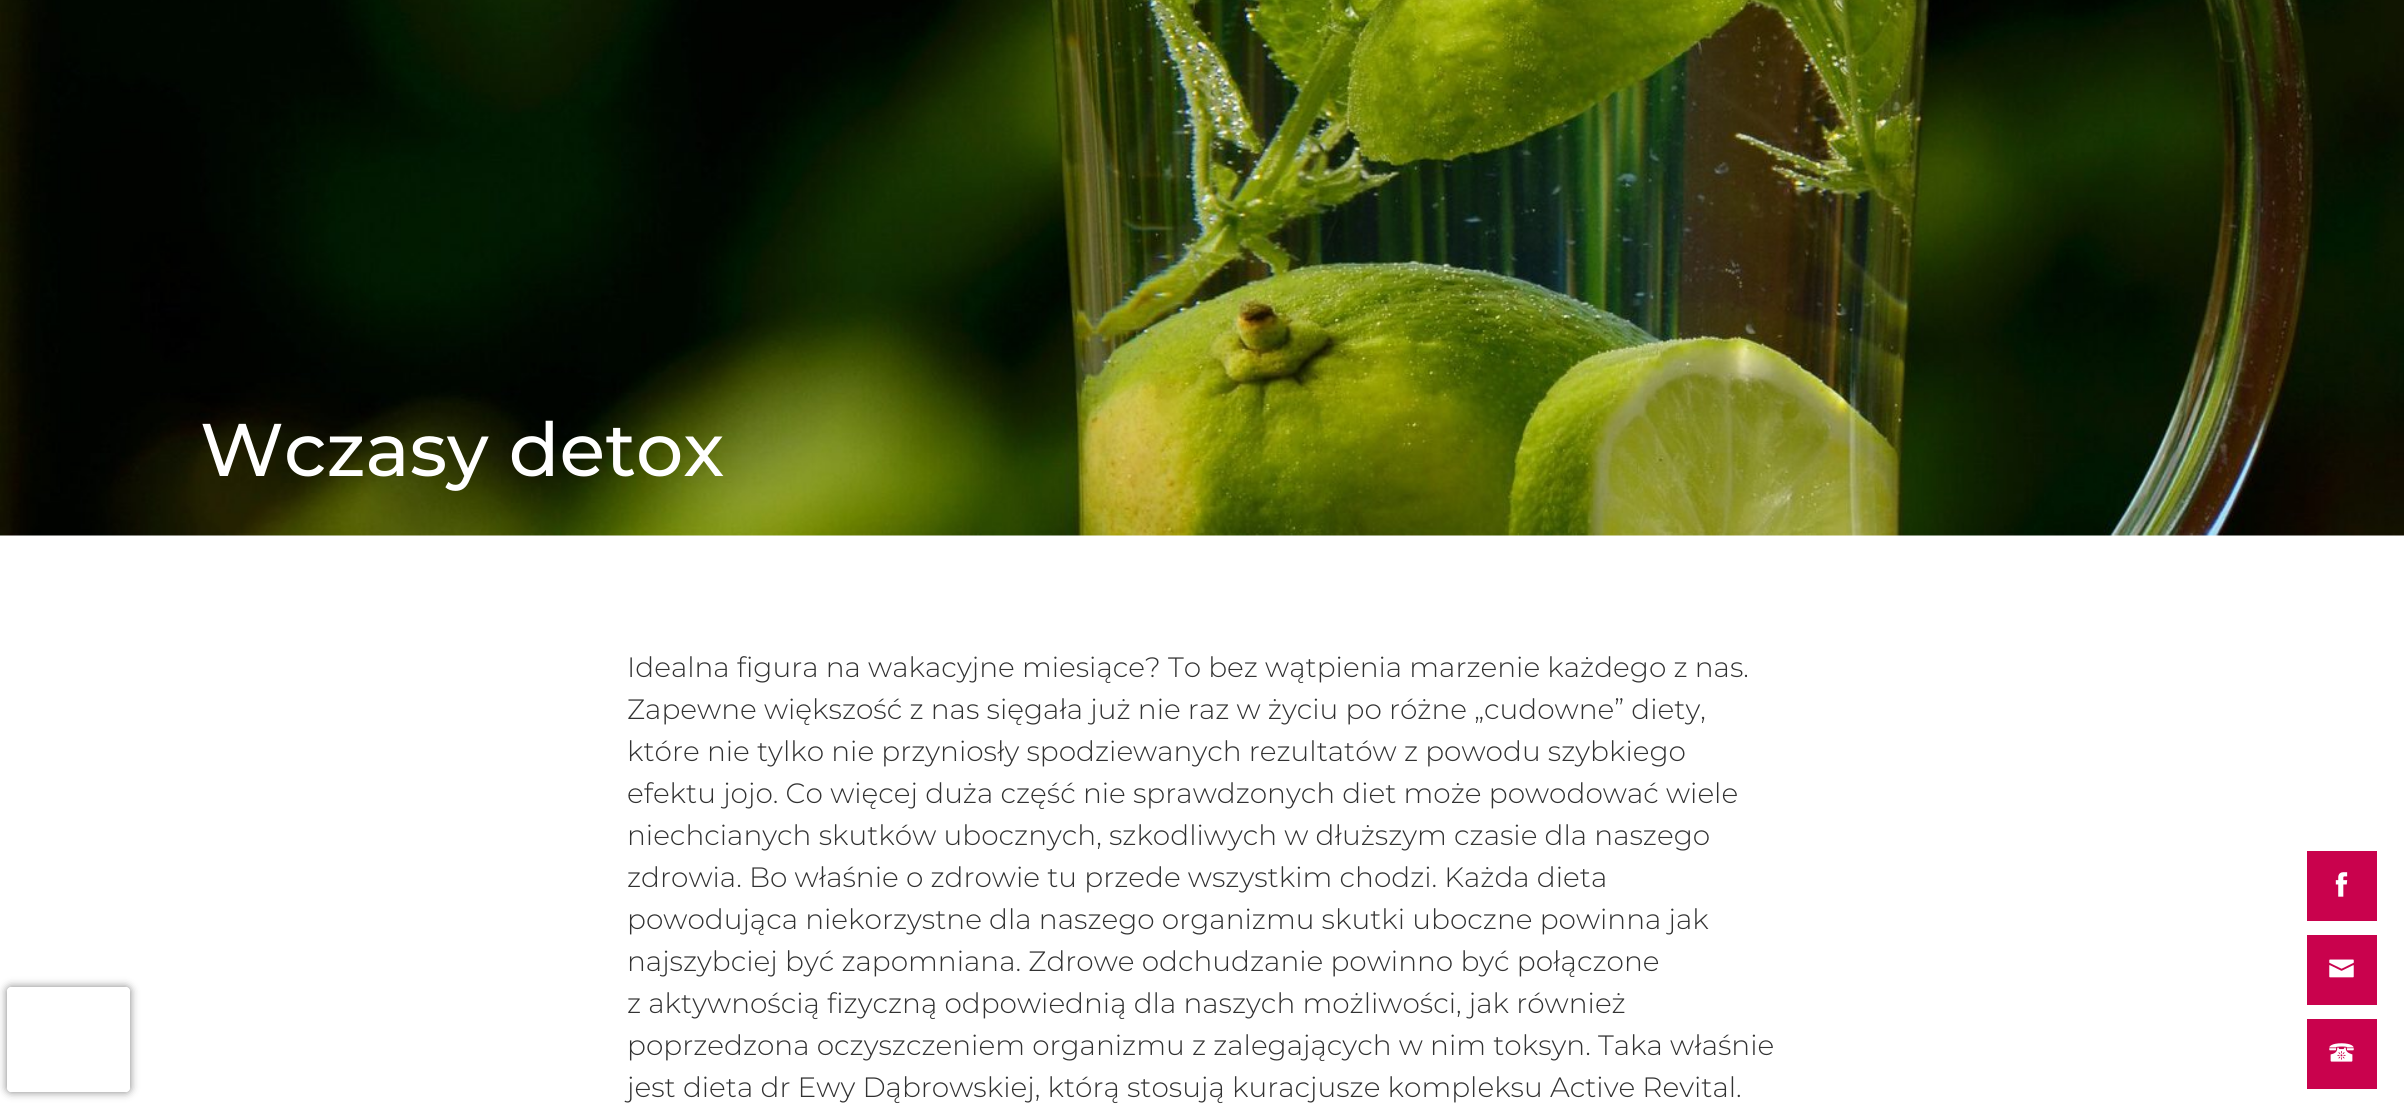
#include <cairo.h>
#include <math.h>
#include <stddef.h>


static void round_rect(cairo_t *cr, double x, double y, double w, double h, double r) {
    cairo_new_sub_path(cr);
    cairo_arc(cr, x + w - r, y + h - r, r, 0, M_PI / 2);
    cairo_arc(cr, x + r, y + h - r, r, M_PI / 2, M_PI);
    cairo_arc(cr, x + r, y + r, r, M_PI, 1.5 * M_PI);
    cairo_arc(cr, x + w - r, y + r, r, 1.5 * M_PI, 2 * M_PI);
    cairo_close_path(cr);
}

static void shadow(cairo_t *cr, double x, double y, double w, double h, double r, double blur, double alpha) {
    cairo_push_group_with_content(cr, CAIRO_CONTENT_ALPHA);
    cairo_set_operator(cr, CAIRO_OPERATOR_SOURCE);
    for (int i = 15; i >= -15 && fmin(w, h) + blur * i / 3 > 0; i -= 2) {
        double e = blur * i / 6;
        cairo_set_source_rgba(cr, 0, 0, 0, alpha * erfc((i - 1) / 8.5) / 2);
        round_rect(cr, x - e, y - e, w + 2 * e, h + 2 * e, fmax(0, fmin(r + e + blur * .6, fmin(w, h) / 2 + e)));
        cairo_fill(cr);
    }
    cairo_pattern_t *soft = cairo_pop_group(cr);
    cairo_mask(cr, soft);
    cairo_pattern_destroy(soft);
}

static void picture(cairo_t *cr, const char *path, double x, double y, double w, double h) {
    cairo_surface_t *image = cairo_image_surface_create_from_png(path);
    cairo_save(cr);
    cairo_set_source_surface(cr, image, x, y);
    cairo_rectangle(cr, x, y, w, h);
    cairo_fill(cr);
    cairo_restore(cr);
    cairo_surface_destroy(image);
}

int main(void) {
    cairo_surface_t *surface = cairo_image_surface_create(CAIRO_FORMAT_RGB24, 2404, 1115);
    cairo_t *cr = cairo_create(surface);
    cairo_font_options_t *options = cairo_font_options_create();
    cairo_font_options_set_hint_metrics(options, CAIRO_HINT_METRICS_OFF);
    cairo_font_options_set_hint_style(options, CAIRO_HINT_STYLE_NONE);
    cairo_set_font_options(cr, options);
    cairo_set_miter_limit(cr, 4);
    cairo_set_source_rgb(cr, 1, 1, 1);
    cairo_paint(cr);
    cairo_save(cr);
    cairo_set_fill_rule(cr, CAIRO_FILL_RULE_EVEN_ODD);
    cairo_new_path(cr);
    cairo_move_to(cr, 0, 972);
    cairo_line_to(cr, 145, 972);
    cairo_line_to(cr, 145, 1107);
    cairo_line_to(cr, 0, 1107);
    cairo_close_path(cr);
    cairo_move_to(cr, 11, 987);
    cairo_line_to(cr, 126, 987);
    cairo_curve_to(cr, 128, 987, 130, 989, 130, 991);
    cairo_line_to(cr, 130, 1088);
    cairo_curve_to(cr, 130, 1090, 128, 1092, 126, 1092);
    cairo_line_to(cr, 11, 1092);
    cairo_curve_to(cr, 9, 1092, 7, 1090, 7, 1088);
    cairo_line_to(cr, 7, 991);
    cairo_curve_to(cr, 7, 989, 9, 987, 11, 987);
    cairo_close_path(cr);
    cairo_clip(cr);
    cairo_set_source_rgb(cr, 0.502, 0.502, 0.502);
    shadow(cr, 7, 987, 123, 105, 4, 4.5, 1);
    cairo_restore(cr);
    picture(cr, "img1.png", 0, 0, 2404, 536);
    cairo_select_font_face(cr, "Montserrat Medium", CAIRO_FONT_SLANT_NORMAL, CAIRO_FONT_WEIGHT_NORMAL);
    cairo_set_font_size(cr, 74.5);
    cairo_set_source_rgb(cr, 1, 1, 1);
    cairo_move_to(cr, 200, 476);
    cairo_show_text(cr, "Wczasy detox");
    cairo_select_font_face(cr, "Montserrat Light", CAIRO_FONT_SLANT_NORMAL, CAIRO_FONT_WEIGHT_NORMAL);
    cairo_set_font_size(cr, 28);
    cairo_set_source_rgb(cr, 0.196, 0.196, 0.196);
    cairo_move_to(cr, 627, 677);
    cairo_show_text(cr, "Idealna figura na wakacyjne miesiące? To bez wątpienia marzenie każdego z nas.");
    cairo_move_to(cr, 627, 719);
    cairo_show_text(cr, "Zapewne większość z nas sięgała już nie raz w życiu po różne „cudowne” diety,");
    cairo_move_to(cr, 627, 761);
    cairo_show_text(cr, "które nie tylko nie przyniosły spodziewanych rezultatów z powodu szybkiego");
    cairo_move_to(cr, 627, 803);
    cairo_show_text(cr, "efektu jojo. Co więcej duża część nie sprawdzonych diet może powodować wiele");
    cairo_move_to(cr, 627, 845);
    cairo_show_text(cr, "niechcianych skutków ubocznych, szkodliwych w dłuższym czasie dla naszego");
    cairo_move_to(cr, 627, 887);
    cairo_show_text(cr, "zdrowia. Bo właśnie o zdrowie tu przede wszystkim chodzi. Każda dieta");
    cairo_move_to(cr, 627, 929);
    cairo_show_text(cr, "powodująca niekorzystne dla naszego organizmu skutki uboczne powinna jak");
    cairo_move_to(cr, 627, 971);
    cairo_show_text(cr, "najszybciej być zapomniana. Zdrowe odchudzanie powinno być połączone");
    cairo_move_to(cr, 627, 1013);
    cairo_show_text(cr, "z aktywnością fizyczną odpowiednią dla naszych możliwości, jak również");
    cairo_move_to(cr, 627, 1055);
    cairo_show_text(cr, "poprzedzona oczyszczeniem organizmu z zalegających w nim toksyn. Taka właśnie");
    cairo_move_to(cr, 627, 1097);
    cairo_show_text(cr, "jest dieta dr Ewy Dąbrowskiej, którą stosują kuracjusze kompleksu Active Revital.");
    cairo_set_source_rgb(cr, 0.788, 0.008, 0.302);
    cairo_rectangle(cr, 2307, 851, 70, 70);
    cairo_fill(cr);
    picture(cr, "img2.png", 2335, 872, 13, 25);
    cairo_rectangle(cr, 2307, 935, 70, 70);
    cairo_fill(cr);
    picture(cr, "img3.png", 2329, 959, 25, 19);
    cairo_rectangle(cr, 2307, 1019, 70, 70);
    cairo_fill(cr);
    picture(cr, "img4.png", 2329, 1043, 25, 19);
    cairo_surface_write_to_png(surface, "page.png");
    cairo_font_options_destroy(options);
    cairo_destroy(cr);
    cairo_surface_destroy(surface);
    return 0;
}
